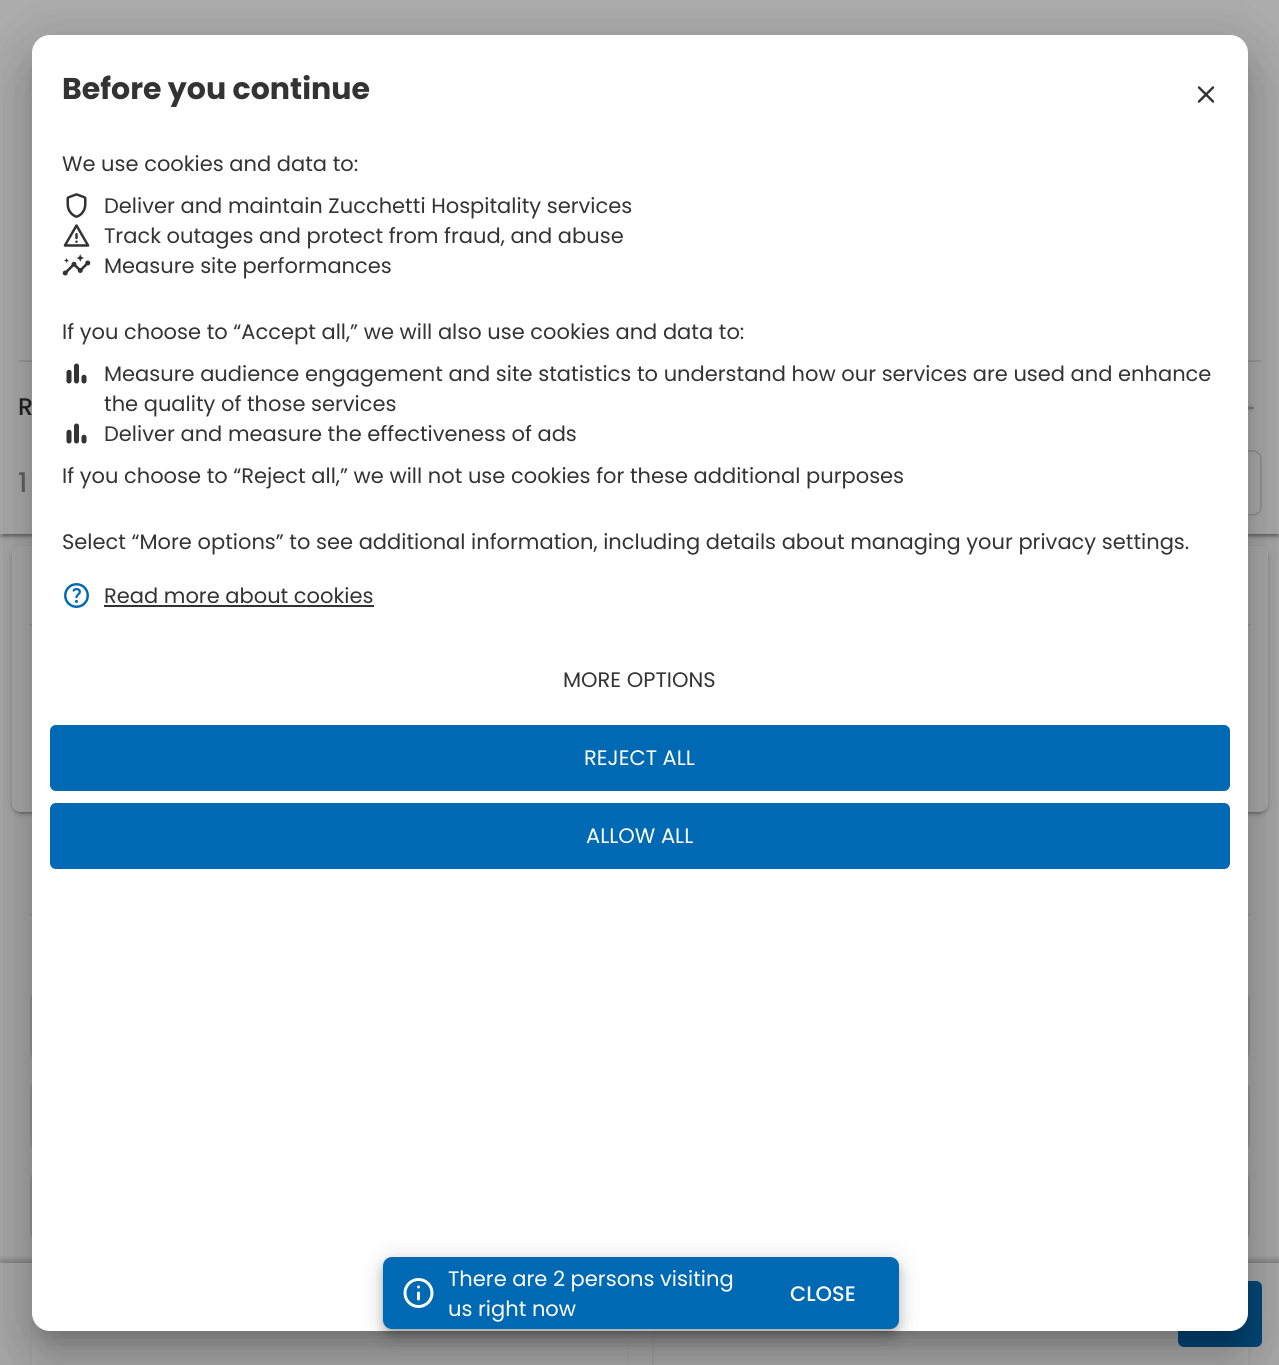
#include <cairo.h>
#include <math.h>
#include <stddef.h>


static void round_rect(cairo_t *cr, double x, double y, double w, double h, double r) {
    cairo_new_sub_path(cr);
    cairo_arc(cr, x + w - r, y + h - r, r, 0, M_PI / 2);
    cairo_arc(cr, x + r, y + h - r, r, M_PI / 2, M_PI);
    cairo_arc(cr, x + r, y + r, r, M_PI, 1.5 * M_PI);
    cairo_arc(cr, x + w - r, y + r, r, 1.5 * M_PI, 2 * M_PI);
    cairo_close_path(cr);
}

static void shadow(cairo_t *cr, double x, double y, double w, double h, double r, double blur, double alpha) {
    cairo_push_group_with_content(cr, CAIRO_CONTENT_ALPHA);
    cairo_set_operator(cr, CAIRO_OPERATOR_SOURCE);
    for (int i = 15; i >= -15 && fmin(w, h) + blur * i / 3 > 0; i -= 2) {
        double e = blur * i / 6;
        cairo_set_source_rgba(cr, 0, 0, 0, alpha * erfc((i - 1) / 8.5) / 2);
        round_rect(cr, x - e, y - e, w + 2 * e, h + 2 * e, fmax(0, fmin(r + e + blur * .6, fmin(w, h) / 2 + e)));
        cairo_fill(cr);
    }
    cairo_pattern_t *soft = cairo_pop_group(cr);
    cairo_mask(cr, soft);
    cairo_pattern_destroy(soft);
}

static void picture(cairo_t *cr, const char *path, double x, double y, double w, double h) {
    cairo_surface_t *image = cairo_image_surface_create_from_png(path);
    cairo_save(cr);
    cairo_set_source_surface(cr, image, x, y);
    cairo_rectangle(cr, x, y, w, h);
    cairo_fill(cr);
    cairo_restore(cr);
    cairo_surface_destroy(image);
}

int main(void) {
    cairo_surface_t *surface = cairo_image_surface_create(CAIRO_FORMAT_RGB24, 1279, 1365);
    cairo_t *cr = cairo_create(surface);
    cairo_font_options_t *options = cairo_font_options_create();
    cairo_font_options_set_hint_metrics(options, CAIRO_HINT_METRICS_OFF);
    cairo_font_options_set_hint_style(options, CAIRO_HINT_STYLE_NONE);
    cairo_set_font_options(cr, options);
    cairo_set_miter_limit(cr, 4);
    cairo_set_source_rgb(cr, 0.667, 0.667, 0.667);
    cairo_paint(cr);
    cairo_set_source_rgb(cr, 0, 0, 0);
    shadow(cr, 0, -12, 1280, 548, 0, 4, 0.12);
    shadow(cr, 0, -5, 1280, 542, 0, 1.5, 0.14);
    shadow(cr, 3, -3, 1274, 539, 0, 1, 0.2);
    cairo_set_source_rgb(cr, 0.678, 0.678, 0.678);
    cairo_rectangle(cr, 0, 0, 1279, 534);
    cairo_fill(cr);
    cairo_set_source_rgb(cr, 0.612, 0.612, 0.612);
    cairo_rectangle(cr, 18, 360, 1244, 2);
    cairo_fill(cr);
    cairo_select_font_face(cr, "Poppins Medium", CAIRO_FONT_SLANT_NORMAL, CAIRO_FONT_WEIGHT_NORMAL);
    cairo_set_font_size(cr, 24);
    cairo_set_source_rgb(cr, 0.137, 0.137, 0.137);
    cairo_move_to(cr, 18, 415);
    cairo_show_text(cr, "R");
    picture(cr, "img1.png", 1248, 406, 6, 4);
    cairo_set_font_size(cr, 27);
    cairo_set_source_rgb(cr, 0.388, 0.388, 0.388);
    cairo_move_to(cr, 18, 492);
    cairo_show_text(cr, "1");
    cairo_set_source_rgb(cr, 0.596, 0.596, 0.596);
    cairo_set_fill_rule(cr, CAIRO_FILL_RULE_EVEN_ODD);
    cairo_new_path(cr);
    cairo_move_to(cr, 783, 450);
    cairo_line_to(cr, 1252, 450);
    cairo_curve_to(cr, 1257, 450, 1262, 454, 1262, 459);
    cairo_line_to(cr, 1262, 507);
    cairo_curve_to(cr, 1262, 512, 1257, 516, 1252, 516);
    cairo_line_to(cr, 783, 516);
    cairo_close_path(cr);
    cairo_move_to(cr, 783, 452);
    cairo_line_to(cr, 1252, 452);
    cairo_curve_to(cr, 1257, 452, 1260, 455, 1260, 459);
    cairo_line_to(cr, 1260, 507);
    cairo_curve_to(cr, 1260, 511, 1257, 514, 1252, 514);
    cairo_line_to(cr, 783, 514);
    cairo_close_path(cr);
    cairo_fill(cr);
    cairo_save(cr);
    cairo_new_path(cr);
    cairo_move_to(cr, 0, 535);
    cairo_line_to(cr, 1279, 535);
    cairo_line_to(cr, 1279, 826);
    cairo_line_to(cr, 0, 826);
    cairo_close_path(cr);
    cairo_move_to(cr, 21, 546);
    cairo_line_to(cr, 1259, 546);
    cairo_curve_to(cr, 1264, 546, 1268, 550, 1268, 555);
    cairo_line_to(cr, 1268, 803);
    cairo_curve_to(cr, 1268, 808, 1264, 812, 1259, 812);
    cairo_line_to(cr, 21, 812);
    cairo_curve_to(cr, 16, 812, 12, 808, 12, 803);
    cairo_line_to(cr, 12, 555);
    cairo_curve_to(cr, 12, 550, 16, 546, 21, 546);
    cairo_close_path(cr);
    cairo_clip(cr);
    cairo_set_source_rgb(cr, 0, 0, 0);
    shadow(cr, 12, 548, 1256, 265, 9, 4, 0.12);
    cairo_restore(cr);
    cairo_save(cr);
    cairo_new_path(cr);
    cairo_move_to(cr, 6, 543);
    cairo_line_to(cr, 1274, 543);
    cairo_line_to(cr, 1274, 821);
    cairo_line_to(cr, 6, 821);
    cairo_close_path(cr);
    cairo_move_to(cr, 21, 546);
    cairo_line_to(cr, 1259, 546);
    cairo_curve_to(cr, 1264, 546, 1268, 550, 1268, 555);
    cairo_line_to(cr, 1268, 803);
    cairo_curve_to(cr, 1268, 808, 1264, 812, 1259, 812);
    cairo_line_to(cr, 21, 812);
    cairo_curve_to(cr, 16, 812, 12, 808, 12, 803);
    cairo_line_to(cr, 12, 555);
    cairo_curve_to(cr, 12, 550, 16, 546, 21, 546);
    cairo_close_path(cr);
    cairo_clip(cr);
    cairo_set_source_rgb(cr, 0, 0, 0);
    shadow(cr, 12, 549, 1256, 266, 9, 1.5, 0.14);
    cairo_restore(cr);
    cairo_save(cr);
    cairo_new_path(cr);
    cairo_move_to(cr, 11, 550);
    cairo_line_to(cr, 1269, 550);
    cairo_line_to(cr, 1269, 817);
    cairo_line_to(cr, 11, 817);
    cairo_close_path(cr);
    cairo_move_to(cr, 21, 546);
    cairo_line_to(cr, 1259, 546);
    cairo_curve_to(cr, 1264, 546, 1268, 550, 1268, 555);
    cairo_line_to(cr, 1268, 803);
    cairo_curve_to(cr, 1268, 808, 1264, 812, 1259, 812);
    cairo_line_to(cr, 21, 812);
    cairo_curve_to(cr, 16, 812, 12, 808, 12, 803);
    cairo_line_to(cr, 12, 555);
    cairo_curve_to(cr, 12, 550, 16, 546, 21, 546);
    cairo_close_path(cr);
    cairo_clip(cr);
    cairo_set_source_rgb(cr, 0, 0, 0);
    shadow(cr, 15, 554, 1250, 259, 6, 1, 0.2);
    cairo_restore(cr);
    cairo_set_source_rgba(cr, 0.678, 0.678, 0.678, 0.7);
    round_rect(cr, 12, 546, 1256, 266, 9);
    cairo_fill(cr);
    cairo_set_source_rgb(cr, 0.612, 0.612, 0.612);
    cairo_rectangle(cr, 30, 624, 1220, 2);
    cairo_fill(cr);
    cairo_rectangle(cr, 30, 914, 1220, 2);
    cairo_fill(cr);
    round_rect(cr, 31, 994, 1218, 64, 5);
    cairo_set_source_rgb(cr, 0.596, 0.596, 0.596);
    cairo_stroke(cr);
    round_rect(cr, 31, 1084, 1218, 64, 5);
    cairo_stroke(cr);
    round_rect(cr, 31, 1174, 1218, 64, 5);
    cairo_stroke(cr);
    cairo_set_source_rgb(cr, 0.612, 0.612, 0.612);
    cairo_rectangle(cr, 30, 1278, 1220, 2);
    cairo_fill(cr);
    cairo_set_source_rgb(cr, 0.596, 0.596, 0.596);
    cairo_new_path(cr);
    cairo_move_to(cr, 39, 1317);
    cairo_line_to(cr, 39, 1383);
    cairo_curve_to(cr, 34, 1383, 30, 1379, 30, 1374);
    cairo_line_to(cr, 30, 1326);
    cairo_curve_to(cr, 30, 1321, 34, 1317, 39, 1317);
    cairo_close_path(cr);
    cairo_move_to(cr, 39, 1318);
    cairo_line_to(cr, 39, 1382);
    cairo_curve_to(cr, 35, 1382, 32, 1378, 32, 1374);
    cairo_line_to(cr, 32, 1326);
    cairo_curve_to(cr, 32, 1322, 35, 1318, 39, 1318);
    cairo_close_path(cr);
    cairo_fill(cr);
    cairo_new_path(cr);
    cairo_move_to(cr, 114, 1317);
    cairo_line_to(cr, 620, 1317);
    cairo_curve_to(cr, 624, 1317, 628, 1321, 628, 1326);
    cairo_line_to(cr, 628, 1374);
    cairo_curve_to(cr, 628, 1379, 624, 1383, 620, 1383);
    cairo_line_to(cr, 114, 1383);
    cairo_close_path(cr);
    cairo_move_to(cr, 114, 1318);
    cairo_line_to(cr, 620, 1318);
    cairo_curve_to(cr, 624, 1318, 627, 1322, 627, 1326);
    cairo_line_to(cr, 627, 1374);
    cairo_curve_to(cr, 627, 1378, 624, 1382, 620, 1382);
    cairo_line_to(cr, 114, 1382);
    cairo_close_path(cr);
    cairo_fill(cr);
    cairo_new_path(cr);
    cairo_move_to(cr, 662, 1317);
    cairo_line_to(cr, 662, 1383);
    cairo_curve_to(cr, 657, 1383, 652, 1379, 652, 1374);
    cairo_line_to(cr, 652, 1326);
    cairo_curve_to(cr, 652, 1321, 657, 1317, 662, 1317);
    cairo_close_path(cr);
    cairo_move_to(cr, 662, 1318);
    cairo_line_to(cr, 662, 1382);
    cairo_curve_to(cr, 657, 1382, 654, 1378, 654, 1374);
    cairo_line_to(cr, 654, 1326);
    cairo_curve_to(cr, 654, 1322, 657, 1318, 662, 1318);
    cairo_close_path(cr);
    cairo_fill(cr);
    cairo_set_source_rgba(cr, 0, 0, 0, 0.12);
    cairo_new_path(cr);
    cairo_move_to(cr, 760, 1317);
    cairo_line_to(cr, 1240, 1317);
    cairo_curve_to(cr, 1245, 1317, 1250, 1321, 1250, 1326);
    cairo_line_to(cr, 1250, 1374);
    cairo_curve_to(cr, 1250, 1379, 1245, 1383, 1240, 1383);
    cairo_line_to(cr, 760, 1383);
    cairo_close_path(cr);
    cairo_move_to(cr, 760, 1318);
    cairo_line_to(cr, 1240, 1318);
    cairo_curve_to(cr, 1245, 1318, 1248, 1322, 1248, 1326);
    cairo_line_to(cr, 1248, 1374);
    cairo_curve_to(cr, 1248, 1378, 1245, 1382, 1240, 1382);
    cairo_line_to(cr, 760, 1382);
    cairo_close_path(cr);
    cairo_fill(cr);
    cairo_save(cr);
    cairo_set_fill_rule(cr, CAIRO_FILL_RULE_WINDING);
    cairo_rectangle(cr, 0, 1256, 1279, 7);
    cairo_clip(cr);
    cairo_set_source_rgb(cr, 0, 0, 0);
    shadow(cr, 0, 1260, 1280, 102, 0, 3, 0.25);
    cairo_restore(cr);
    cairo_set_source_rgba(cr, 0.678, 0.678, 0.678, 0.7);
    cairo_rectangle(cr, 30, 1278, 1220, 87);
    cairo_fill(cr);
    cairo_set_source_rgb(cr, 0, 0.278, 0.478);
    round_rect(cr, 1178, 1281, 84, 66, 6);
    cairo_fill(cr);
    cairo_set_source_rgb(cr, 0, 0, 0);
    shadow(cr, 20, 36, 1240, 1320, 30, 34.5, 0.12);
    shadow(cr, 27, 66, 1226, 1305, 23, 28.5, 0.14);
    shadow(cr, 42, 62, 1196, 1275, 8, 11, 0.2);
    cairo_set_source_rgb(cr, 1, 1, 1);
    round_rect(cr, 32, 35, 1216, 1296, 18);
    cairo_fill(cr);
    cairo_select_font_face(cr, "Poppins", CAIRO_FONT_SLANT_NORMAL, CAIRO_FONT_WEIGHT_BOLD);
    cairo_set_font_size(cr, 30);
    cairo_set_source_rgb(cr, 0.2, 0.2, 0.2);
    cairo_move_to(cr, 62, 99);
    cairo_show_text(cr, "Before you continue");
    picture(cr, "img2.png", 1197, 86, 18, 17);
    cairo_select_font_face(cr, "Poppins", CAIRO_FONT_SLANT_NORMAL, CAIRO_FONT_WEIGHT_NORMAL);
    cairo_set_font_size(cr, 21);
    cairo_move_to(cr, 62, 171);
    cairo_show_text(cr, "We use cookies and data to:");
    picture(cr, "img3.png", 66, 193, 21, 25);
    cairo_move_to(cr, 104, 213);
    cairo_show_text(cr, "Deliver and maintain Zucchetti Hospitality services");
    picture(cr, "img4.png", 63, 224, 27, 23);
    cairo_move_to(cr, 104, 243);
    cairo_show_text(cr, "Track outages and protect from fraud, and abuse");
    picture(cr, "img5.png", 62, 254, 29, 22);
    cairo_move_to(cr, 104, 273);
    cairo_show_text(cr, "Measure site performances");
    cairo_move_to(cr, 62, 339);
    cairo_show_text(cr, "If you choose to “Accept all,” we will also use cookies and data to:");
    picture(cr, "img6.png", 66, 363, 21, 21);
    cairo_move_to(cr, 104, 381);
    cairo_show_text(cr, "Measure audience engagement and site statistics to understand how our services are used and enhance");
    cairo_move_to(cr, 104, 411);
    cairo_show_text(cr, "the quality of those services");
    picture(cr, "img6.png", 66, 423, 21, 21);
    cairo_move_to(cr, 104, 441);
    cairo_show_text(cr, "Deliver and measure the effectiveness of ads");
    cairo_move_to(cr, 62, 483);
    cairo_show_text(cr, "If you choose to “Reject all,” we will not use cookies for these additional purposes");
    cairo_move_to(cr, 62, 549);
    cairo_show_text(cr, "Select “More options” to see additional information, including details about managing your privacy settings.");
    picture(cr, "img7.png", 64, 583, 25, 25);
    cairo_move_to(cr, 104, 603);
    cairo_show_text(cr, "Read more about cookies");
    cairo_rectangle(cr, 104, 605, 270, 2);
    cairo_fill(cr);
    cairo_move_to(cr, 563, 687);
    cairo_show_text(cr, "MORE OPTIONS");
    cairo_set_source_rgb(cr, 0, 0.412, 0.702);
    round_rect(cr, 50, 725, 1180, 66, 6);
    cairo_fill(cr);
    cairo_set_source_rgb(cr, 1, 1, 1);
    cairo_move_to(cr, 584, 765);
    cairo_show_text(cr, "REJECT ALL");
    cairo_set_source_rgb(cr, 0, 0.412, 0.702);
    round_rect(cr, 50, 803, 1180, 66, 6);
    cairo_fill(cr);
    cairo_set_source_rgb(cr, 1, 1, 1);
    cairo_move_to(cr, 586, 843);
    cairo_show_text(cr, "ALLOW ALL");
    cairo_set_source_rgb(cr, 0, 0, 0);
    shadow(cr, 383, 1259, 516, 72, 9, 13.5, 0.12);
    shadow(cr, 383, 1266, 516, 72, 9, 7.5, 0.14);
    shadow(cr, 384, 1263, 513, 69, 8, 4, 0.2);
    cairo_set_source_rgb(cr, 0, 0.412, 0.702);
    round_rect(cr, 383, 1257, 516, 72, 9);
    cairo_fill(cr);
    picture(cr, "img8.png", 403, 1278, 31, 30);
    cairo_set_source_rgb(cr, 1, 1, 1);
    cairo_move_to(cr, 448, 1286);
    cairo_show_text(cr, "There are 2 persons visiting");
    cairo_move_to(cr, 448, 1316);
    cairo_show_text(cr, "us right now");
    cairo_select_font_face(cr, "Poppins Medium", CAIRO_FONT_SLANT_NORMAL, CAIRO_FONT_WEIGHT_NORMAL);
    cairo_move_to(cr, 790, 1301);
    cairo_show_text(cr, "CLOSE");
    cairo_surface_write_to_png(surface, "page.png");
    cairo_font_options_destroy(options);
    cairo_destroy(cr);
    cairo_surface_destroy(surface);
    return 0;
}
